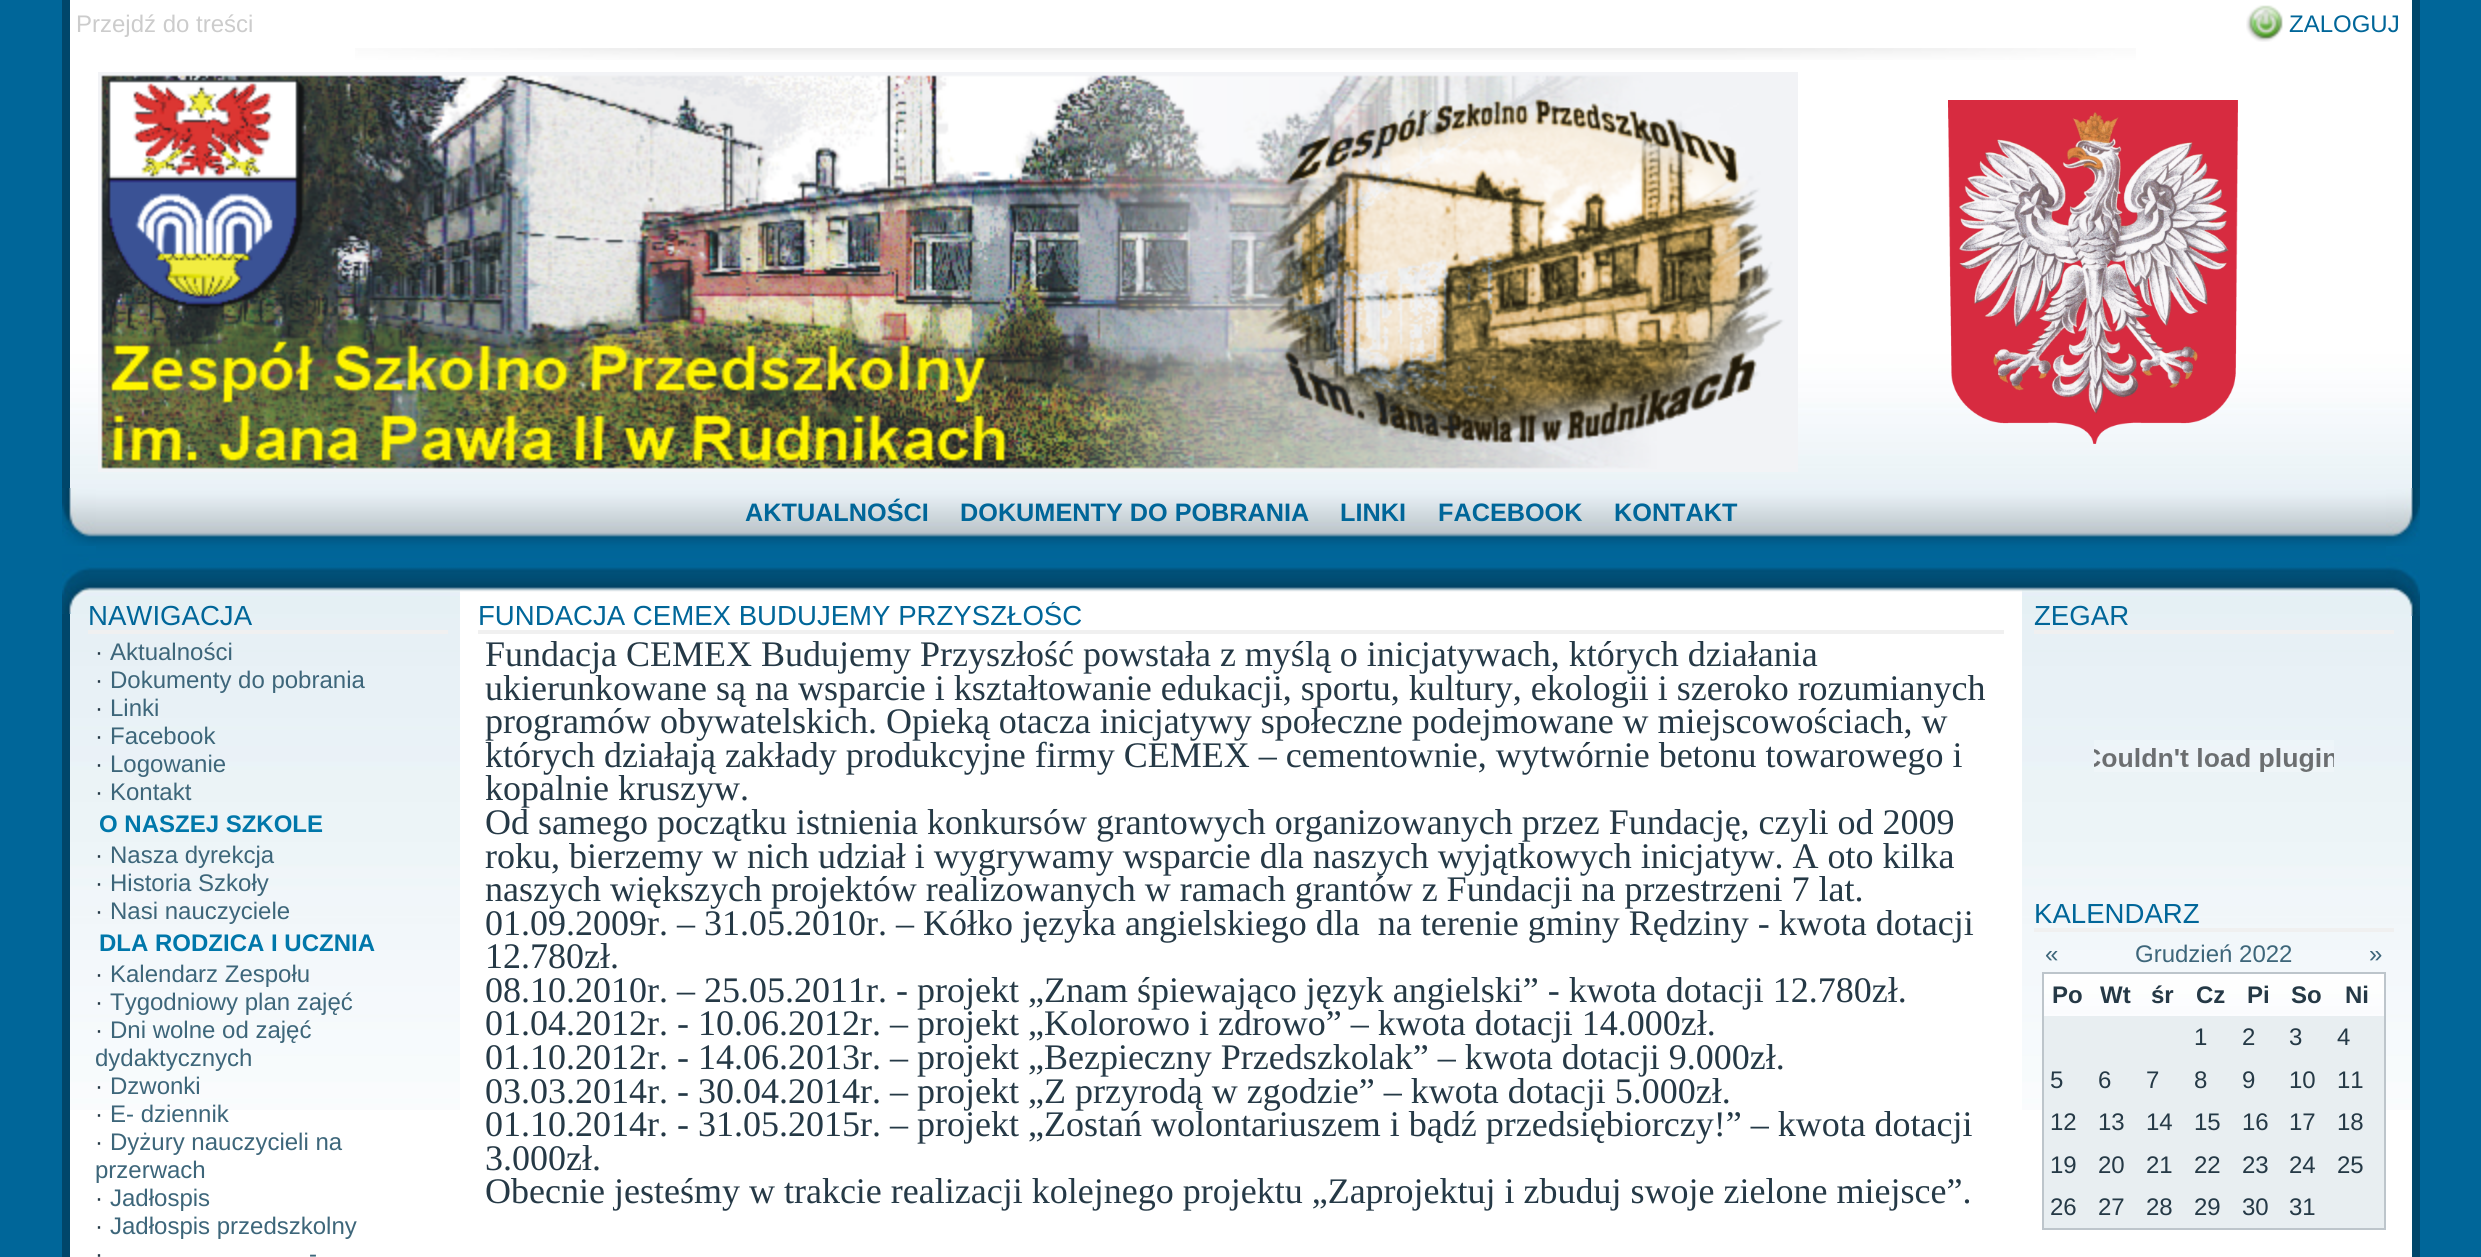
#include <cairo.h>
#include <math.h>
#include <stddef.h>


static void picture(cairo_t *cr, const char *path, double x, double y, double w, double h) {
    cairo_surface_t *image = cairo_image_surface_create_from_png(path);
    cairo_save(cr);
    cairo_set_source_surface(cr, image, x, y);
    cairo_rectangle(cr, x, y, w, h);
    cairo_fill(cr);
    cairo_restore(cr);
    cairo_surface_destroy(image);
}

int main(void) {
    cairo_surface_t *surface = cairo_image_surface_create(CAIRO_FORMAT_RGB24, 2481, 1257);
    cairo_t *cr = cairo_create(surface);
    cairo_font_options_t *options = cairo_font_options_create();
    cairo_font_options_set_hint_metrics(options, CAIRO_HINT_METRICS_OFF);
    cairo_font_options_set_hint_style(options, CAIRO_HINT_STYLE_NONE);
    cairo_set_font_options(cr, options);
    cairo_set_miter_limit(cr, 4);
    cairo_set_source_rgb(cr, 0, 0.4, 0.6);
    cairo_paint(cr);
    cairo_set_source_rgb(cr, 1, 1, 1);
    cairo_rectangle(cr, 70, 0, 2342, 348);
    cairo_fill(cr);
    picture(cr, "img1.png", 70, 348, 2342, 140);
    cairo_set_source_rgb(cr, 0, 0.275, 0.416);
    cairo_rectangle(cr, 2412, 0, 8, 488);
    cairo_fill(cr);
    cairo_rectangle(cr, 62, 0, 8, 488);
    cairo_fill(cr);
    picture(cr, "img2.png", 355, 48, 1781, 12);
    picture(cr, "img3.png", 98, 72, 1700, 400);
    picture(cr, "img4.png", 1948, 100, 290, 344);
    cairo_select_font_face(cr, "Liberation Sans", CAIRO_FONT_SLANT_NORMAL, CAIRO_FONT_WEIGHT_NORMAL);
    cairo_set_font_size(cr, 24);
    cairo_set_source_rgb(cr, 0.8, 0.8, 0.8);
    cairo_move_to(cr, 76, 32);
    cairo_show_text(cr, "Przejdź do treści");
    picture(cr, "img5.png", 2246, 5, 37, 37);
    cairo_set_source_rgb(cr, 0, 0.4, 0.6);
    cairo_move_to(cr, 2289, 32);
    cairo_show_text(cr, "ZALOGUJ");
    picture(cr, "img6.png", 62, 488, 34, 58);
    picture(cr, "img7.png", 96, 488, 2290, 66);
    cairo_select_font_face(cr, "Liberation Sans", CAIRO_FONT_SLANT_NORMAL, CAIRO_FONT_WEIGHT_BOLD);
    cairo_set_font_size(cr, 25.25);
    cairo_move_to(cr, 745, 521);
    cairo_show_text(cr, "AKTUALNOŚCI");
    cairo_move_to(cr, 960, 521);
    cairo_show_text(cr, "DOKUMENTY DO POBRANIA");
    cairo_move_to(cr, 1340, 521);
    cairo_show_text(cr, "LINKI");
    cairo_move_to(cr, 1438, 521);
    cairo_show_text(cr, "FACEBOOK");
    cairo_move_to(cr, 1614, 521);
    cairo_show_text(cr, "KONTAKT");
    picture(cr, "img8.png", 2386, 488, 34, 58);
    cairo_set_source_rgb(cr, 1, 1, 1);
    cairo_rectangle(cr, 70, 592, 2342, 665);
    cairo_fill(cr);
    cairo_set_source_rgb(cr, 0, 0.275, 0.416);
    cairo_rectangle(cr, 2412, 616, 8, 641);
    cairo_fill(cr);
    cairo_rectangle(cr, 62, 614, 8, 643);
    cairo_fill(cr);
    picture(cr, "img11.png", 70, 554, 390, 556);
    picture(cr, "img9.png", 62, 554, 27, 60);
    picture(cr, "img11.png", 2022, 554, 390, 556);
    picture(cr, "img10.png", 2386, 554, 34, 62);
    cairo_select_font_face(cr, "Liberation Sans", CAIRO_FONT_SLANT_NORMAL, CAIRO_FONT_WEIGHT_NORMAL);
    cairo_set_font_size(cr, 27.6);
    cairo_set_source_rgb(cr, 0, 0.4, 0.6);
    cairo_move_to(cr, 88, 625);
    cairo_show_text(cr, "NAWIGACJA");
    cairo_set_source_rgb(cr, 0.941, 0.941, 0.941);
    cairo_rectangle(cr, 88, 630, 360, 4);
    cairo_fill(cr);
    cairo_set_font_size(cr, 24);
    cairo_set_source_rgb(cr, 0.145, 0.224, 0.275);
    cairo_move_to(cr, 95, 660);
    cairo_show_text(cr, "·");
    cairo_set_source_rgb(cr, 0.239, 0.4, 0.478);
    cairo_move_to(cr, 110, 660);
    cairo_show_text(cr, "Aktualności");
    cairo_set_source_rgb(cr, 0.145, 0.224, 0.275);
    cairo_move_to(cr, 95, 688);
    cairo_show_text(cr, "·");
    cairo_set_source_rgb(cr, 0.239, 0.4, 0.478);
    cairo_move_to(cr, 110, 688);
    cairo_show_text(cr, "Dokumenty do pobrania");
    cairo_set_source_rgb(cr, 0.145, 0.224, 0.275);
    cairo_move_to(cr, 95, 716);
    cairo_show_text(cr, "·");
    cairo_set_source_rgb(cr, 0.239, 0.4, 0.478);
    cairo_move_to(cr, 110, 716);
    cairo_show_text(cr, "Linki");
    cairo_set_source_rgb(cr, 0.145, 0.224, 0.275);
    cairo_move_to(cr, 95, 744);
    cairo_show_text(cr, "·");
    cairo_set_source_rgb(cr, 0.239, 0.4, 0.478);
    cairo_move_to(cr, 110, 744);
    cairo_show_text(cr, "Facebook");
    cairo_set_source_rgb(cr, 0.145, 0.224, 0.275);
    cairo_move_to(cr, 95, 772);
    cairo_show_text(cr, "·");
    cairo_set_source_rgb(cr, 0.239, 0.4, 0.478);
    cairo_move_to(cr, 110, 772);
    cairo_show_text(cr, "Logowanie");
    cairo_set_source_rgb(cr, 0.145, 0.224, 0.275);
    cairo_move_to(cr, 95, 800);
    cairo_show_text(cr, "·");
    cairo_set_source_rgb(cr, 0.239, 0.4, 0.478);
    cairo_move_to(cr, 110, 800);
    cairo_show_text(cr, "Kontakt");
    cairo_select_font_face(cr, "Liberation Sans", CAIRO_FONT_SLANT_NORMAL, CAIRO_FONT_WEIGHT_BOLD);
    cairo_set_source_rgb(cr, 0, 0.467, 0.667);
    cairo_move_to(cr, 99, 832);
    cairo_show_text(cr, "O NASZEJ SZKOLE");
    cairo_select_font_face(cr, "Liberation Sans", CAIRO_FONT_SLANT_NORMAL, CAIRO_FONT_WEIGHT_NORMAL);
    cairo_set_source_rgb(cr, 0.145, 0.224, 0.275);
    cairo_move_to(cr, 95, 863);
    cairo_show_text(cr, "·");
    cairo_set_source_rgb(cr, 0.239, 0.4, 0.478);
    cairo_move_to(cr, 110, 863);
    cairo_show_text(cr, "Nasza dyrekcja");
    cairo_set_source_rgb(cr, 0.145, 0.224, 0.275);
    cairo_move_to(cr, 95, 891);
    cairo_show_text(cr, "·");
    cairo_set_source_rgb(cr, 0.239, 0.4, 0.478);
    cairo_move_to(cr, 110, 891);
    cairo_show_text(cr, "Historia Szkoły");
    cairo_set_source_rgb(cr, 0.145, 0.224, 0.275);
    cairo_move_to(cr, 95, 919);
    cairo_show_text(cr, "·");
    cairo_set_source_rgb(cr, 0.239, 0.4, 0.478);
    cairo_move_to(cr, 110, 919);
    cairo_show_text(cr, "Nasi nauczyciele");
    cairo_select_font_face(cr, "Liberation Sans", CAIRO_FONT_SLANT_NORMAL, CAIRO_FONT_WEIGHT_BOLD);
    cairo_set_source_rgb(cr, 0, 0.467, 0.667);
    cairo_move_to(cr, 99, 951);
    cairo_show_text(cr, "DLA RODZICA I UCZNIA");
    cairo_select_font_face(cr, "Liberation Sans", CAIRO_FONT_SLANT_NORMAL, CAIRO_FONT_WEIGHT_NORMAL);
    cairo_set_source_rgb(cr, 0.145, 0.224, 0.275);
    cairo_move_to(cr, 95, 982);
    cairo_show_text(cr, "·");
    cairo_set_source_rgb(cr, 0.239, 0.4, 0.478);
    cairo_move_to(cr, 110, 982);
    cairo_show_text(cr, "Kalendarz Zespołu");
    cairo_set_source_rgb(cr, 0.145, 0.224, 0.275);
    cairo_move_to(cr, 95, 1010);
    cairo_show_text(cr, "·");
    cairo_set_source_rgb(cr, 0.239, 0.4, 0.478);
    cairo_move_to(cr, 110, 1010);
    cairo_show_text(cr, "Tygodniowy plan zajęć");
    cairo_set_source_rgb(cr, 0.145, 0.224, 0.275);
    cairo_move_to(cr, 95, 1038);
    cairo_show_text(cr, "·");
    cairo_set_source_rgb(cr, 0.239, 0.4, 0.478);
    cairo_move_to(cr, 110, 1038);
    cairo_show_text(cr, "Dni wolne od zajęć");
    cairo_move_to(cr, 95, 1066);
    cairo_show_text(cr, "dydaktycznych");
    cairo_set_source_rgb(cr, 0.145, 0.224, 0.275);
    cairo_move_to(cr, 95, 1094);
    cairo_show_text(cr, "·");
    cairo_set_source_rgb(cr, 0.239, 0.4, 0.478);
    cairo_move_to(cr, 110, 1094);
    cairo_show_text(cr, "Dzwonki");
    cairo_set_source_rgb(cr, 0.145, 0.224, 0.275);
    cairo_move_to(cr, 95, 1122);
    cairo_show_text(cr, "·");
    cairo_set_source_rgb(cr, 0.239, 0.4, 0.478);
    cairo_move_to(cr, 110, 1122);
    cairo_show_text(cr, "E- dziennik");
    cairo_set_source_rgb(cr, 0.145, 0.224, 0.275);
    cairo_move_to(cr, 95, 1150);
    cairo_show_text(cr, "·");
    cairo_set_source_rgb(cr, 0.239, 0.4, 0.478);
    cairo_move_to(cr, 110, 1150);
    cairo_show_text(cr, "Dyżury nauczycieli na");
    cairo_move_to(cr, 95, 1178);
    cairo_show_text(cr, "przerwach");
    cairo_set_source_rgb(cr, 0.145, 0.224, 0.275);
    cairo_move_to(cr, 95, 1206);
    cairo_show_text(cr, "·");
    cairo_set_source_rgb(cr, 0.239, 0.4, 0.478);
    cairo_move_to(cr, 110, 1206);
    cairo_show_text(cr, "Jadłospis");
    cairo_set_source_rgb(cr, 0.145, 0.224, 0.275);
    cairo_move_to(cr, 95, 1234);
    cairo_show_text(cr, "·");
    cairo_set_source_rgb(cr, 0.239, 0.4, 0.478);
    cairo_move_to(cr, 110, 1234);
    cairo_show_text(cr, "Jadłospis przedszkolny");
    cairo_set_source_rgb(cr, 0.145, 0.224, 0.275);
    cairo_move_to(cr, 95, 1262);
    cairo_show_text(cr, "·");
    cairo_set_source_rgb(cr, 0.239, 0.4, 0.478);
    cairo_move_to(cr, 309, 1262);
    cairo_show_text(cr, "-");
    picture(cr, "img12.png", 460, 554, 1562, 38);
    cairo_save(cr);
    cairo_rectangle(cr, 478, 602, 1526, 630);
    cairo_clip(cr);
    cairo_set_font_size(cr, 27.6);
    cairo_set_source_rgb(cr, 0, 0.4, 0.6);
    cairo_move_to(cr, 478, 625);
    cairo_show_text(cr, "FUNDACJA CEMEX BUDUJEMY PRZYSZŁOŚC");
    cairo_restore(cr);
    cairo_set_source_rgb(cr, 0.941, 0.941, 0.941);
    cairo_rectangle(cr, 478, 630, 1526, 4);
    cairo_fill(cr);
    cairo_select_font_face(cr, "Liberation Serif", CAIRO_FONT_SLANT_NORMAL, CAIRO_FONT_WEIGHT_NORMAL);
    cairo_set_font_size(cr, 36);
    cairo_set_source_rgb(cr, 0.145, 0.224, 0.275);
    cairo_move_to(cr, 485, 666);
    cairo_show_text(cr, "Fundacja CEMEX Budujemy Przyszłość powstała z myślą o inicjatywach, których działania");
    cairo_move_to(cr, 485, 700);
    cairo_show_text(cr, "ukierunkowane są na wsparcie i kształtowanie edukacji, sportu, kultury, ekologii i szeroko rozumianych");
    cairo_move_to(cr, 485, 733);
    cairo_show_text(cr, "programów obywatelskich. Opieką otacza inicjatywy społeczne podejmowane w miejscowościach, w");
    cairo_move_to(cr, 485, 767);
    cairo_show_text(cr, "których działają zakłady produkcyjne firmy CEMEX – cementownie, wytwórnie betonu towarowego i");
    cairo_move_to(cr, 485, 800);
    cairo_show_text(cr, "kopalnie kruszyw.");
    cairo_move_to(cr, 485, 834);
    cairo_show_text(cr, "Od samego początku istnienia konkursów grantowych organizowanych przez Fundację, czyli od 2009");
    cairo_move_to(cr, 485, 868);
    cairo_show_text(cr, "roku, bierzemy w nich udział i wygrywamy wsparcie dla naszych wyjątkowych inicjatyw. A oto kilka");
    cairo_move_to(cr, 485, 901);
    cairo_show_text(cr, "naszych większych projektów realizowanych w ramach grantów z Fundacji na przestrzeni 7 lat.");
    cairo_move_to(cr, 485, 935);
    cairo_show_text(cr, "01.09.2009r. – 31.05.2010r. – Kółko języka angielskiego dla  na terenie gminy Rędziny - kwota dotacji");
    cairo_move_to(cr, 485, 968);
    cairo_show_text(cr, "12.780zł.");
    cairo_move_to(cr, 485, 1002);
    cairo_show_text(cr, "08.10.2010r. – 25.05.2011r. - projekt „Znam śpiewająco język angielski” - kwota dotacji 12.780zł.");
    cairo_move_to(cr, 485, 1035);
    cairo_show_text(cr, "01.04.2012r. - 10.06.2012r. – projekt „Kolorowo i zdrowo” – kwota dotacji 14.000zł.");
    cairo_move_to(cr, 485, 1069);
    cairo_show_text(cr, "01.10.2012r. - 14.06.2013r. – projekt „Bezpieczny Przedszkolak” – kwota dotacji 9.000zł.");
    cairo_move_to(cr, 485, 1103);
    cairo_show_text(cr, "03.03.2014r. - 30.04.2014r. – projekt „Z przyrodą w zgodzie” – kwota dotacji 5.000zł.");
    cairo_move_to(cr, 485, 1136);
    cairo_show_text(cr, "01.10.2014r. - 31.05.2015r. – projekt „Zostań wolontariuszem i bądź przedsiębiorczy!” – kwota dotacji");
    cairo_move_to(cr, 485, 1170);
    cairo_show_text(cr, "3.000zł.");
    cairo_move_to(cr, 485, 1203);
    cairo_show_text(cr, "Obecnie jesteśmy w trakcie realizacji kolejnego projektu „Zaprojektuj i zbuduj swoje zielone miejsce”.");
    cairo_select_font_face(cr, "Liberation Sans", CAIRO_FONT_SLANT_NORMAL, CAIRO_FONT_WEIGHT_NORMAL);
    cairo_set_font_size(cr, 27.6);
    cairo_set_source_rgb(cr, 0, 0.4, 0.6);
    cairo_move_to(cr, 2034, 625);
    cairo_show_text(cr, "ZEGAR");
    cairo_set_source_rgb(cr, 0.941, 0.941, 0.941);
    cairo_rectangle(cr, 2034, 630, 360, 4);
    cairo_fill(cr);
    picture(cr, "img13.png", 2094, 740, 240, 32);
    cairo_set_source_rgb(cr, 0, 0.4, 0.6);
    cairo_move_to(cr, 2034, 923);
    cairo_show_text(cr, "KALENDARZ");
    cairo_set_source_rgb(cr, 0.941, 0.941, 0.941);
    cairo_rectangle(cr, 2034, 928, 360, 4);
    cairo_fill(cr);
    cairo_set_font_size(cr, 24);
    cairo_set_source_rgb(cr, 0.239, 0.4, 0.478);
    cairo_move_to(cr, 2045, 962);
    cairo_show_text(cr, "«");
    cairo_move_to(cr, 2135, 962);
    cairo_show_text(cr, "Grudzień 2022");
    cairo_move_to(cr, 2369, 962);
    cairo_show_text(cr, "»");
    cairo_set_source_rgb(cr, 0.741, 0.773, 0.796);
    cairo_rectangle(cr, 2042, 972, 344, 258);
    cairo_fill(cr);
    picture(cr, "img14.png", 2044, 974, 46, 42);
    cairo_select_font_face(cr, "Liberation Sans", CAIRO_FONT_SLANT_NORMAL, CAIRO_FONT_WEIGHT_BOLD);
    cairo_set_source_rgb(cr, 0.145, 0.224, 0.275);
    cairo_move_to(cr, 2052, 1003);
    cairo_show_text(cr, "Po");
    picture(cr, "img15.png", 2090, 974, 48, 42);
    cairo_move_to(cr, 2100, 1003);
    cairo_show_text(cr, "Wt");
    picture(cr, "img15.png", 2138, 974, 48, 42);
    cairo_move_to(cr, 2151, 1003);
    cairo_show_text(cr, "śr");
    picture(cr, "img15.png", 2186, 974, 48, 42);
    cairo_move_to(cr, 2196, 1003);
    cairo_show_text(cr, "Cz");
    picture(cr, "img15.png", 2234, 974, 48, 42);
    cairo_move_to(cr, 2247, 1003);
    cairo_show_text(cr, "Pi");
    picture(cr, "img15.png", 2282, 974, 48, 42);
    cairo_move_to(cr, 2291, 1003);
    cairo_show_text(cr, "So");
    picture(cr, "img16.png", 2330, 974, 54, 42);
    cairo_move_to(cr, 2345, 1003);
    cairo_show_text(cr, "Ni");
    cairo_set_source_rgb(cr, 0.91, 0.933, 0.945);
    cairo_rectangle(cr, 2044, 1016, 340, 42);
    cairo_fill(cr);
    cairo_select_font_face(cr, "Liberation Sans", CAIRO_FONT_SLANT_NORMAL, CAIRO_FONT_WEIGHT_NORMAL);
    cairo_set_source_rgb(cr, 0.145, 0.224, 0.275);
    cairo_move_to(cr, 2194, 1045);
    cairo_show_text(cr, "1");
    cairo_move_to(cr, 2242, 1045);
    cairo_show_text(cr, "2");
    cairo_move_to(cr, 2289, 1045);
    cairo_show_text(cr, "3");
    cairo_move_to(cr, 2337, 1045);
    cairo_show_text(cr, "4");
    cairo_set_source_rgb(cr, 0.91, 0.933, 0.945);
    cairo_rectangle(cr, 2044, 1058, 340, 44);
    cairo_fill(cr);
    cairo_set_source_rgb(cr, 0.145, 0.224, 0.275);
    cairo_move_to(cr, 2050, 1088);
    cairo_show_text(cr, "5");
    cairo_move_to(cr, 2098, 1088);
    cairo_show_text(cr, "6");
    cairo_move_to(cr, 2146, 1088);
    cairo_show_text(cr, "7");
    cairo_move_to(cr, 2194, 1088);
    cairo_show_text(cr, "8");
    cairo_move_to(cr, 2242, 1088);
    cairo_show_text(cr, "9");
    cairo_move_to(cr, 2289, 1088);
    cairo_show_text(cr, "10");
    cairo_move_to(cr, 2337, 1088);
    cairo_show_text(cr, "11");
    cairo_set_source_rgb(cr, 0.91, 0.933, 0.945);
    cairo_rectangle(cr, 2044, 1102, 340, 42);
    cairo_fill(cr);
    cairo_set_source_rgb(cr, 0.145, 0.224, 0.275);
    cairo_move_to(cr, 2050, 1130);
    cairo_show_text(cr, "12");
    cairo_move_to(cr, 2098, 1130);
    cairo_show_text(cr, "13");
    cairo_move_to(cr, 2146, 1130);
    cairo_show_text(cr, "14");
    cairo_move_to(cr, 2194, 1130);
    cairo_show_text(cr, "15");
    cairo_move_to(cr, 2242, 1130);
    cairo_show_text(cr, "16");
    cairo_move_to(cr, 2289, 1130);
    cairo_show_text(cr, "17");
    cairo_move_to(cr, 2337, 1130);
    cairo_show_text(cr, "18");
    cairo_set_source_rgb(cr, 0.91, 0.933, 0.945);
    cairo_rectangle(cr, 2044, 1144, 340, 42);
    cairo_fill(cr);
    cairo_set_source_rgb(cr, 0.145, 0.224, 0.275);
    cairo_move_to(cr, 2050, 1173);
    cairo_show_text(cr, "19");
    cairo_move_to(cr, 2098, 1173);
    cairo_show_text(cr, "20");
    cairo_move_to(cr, 2146, 1173);
    cairo_show_text(cr, "21");
    cairo_move_to(cr, 2194, 1173);
    cairo_show_text(cr, "22");
    cairo_move_to(cr, 2242, 1173);
    cairo_show_text(cr, "23");
    cairo_move_to(cr, 2289, 1173);
    cairo_show_text(cr, "24");
    cairo_move_to(cr, 2337, 1173);
    cairo_show_text(cr, "25");
    cairo_set_source_rgb(cr, 0.91, 0.933, 0.945);
    cairo_rectangle(cr, 2044, 1186, 340, 42);
    cairo_fill(cr);
    cairo_set_source_rgb(cr, 0.145, 0.224, 0.275);
    cairo_move_to(cr, 2050, 1215);
    cairo_show_text(cr, "26");
    cairo_move_to(cr, 2098, 1215);
    cairo_show_text(cr, "27");
    cairo_move_to(cr, 2146, 1215);
    cairo_show_text(cr, "28");
    cairo_move_to(cr, 2194, 1215);
    cairo_show_text(cr, "29");
    cairo_move_to(cr, 2242, 1215);
    cairo_show_text(cr, "30");
    cairo_move_to(cr, 2289, 1215);
    cairo_show_text(cr, "31");
    cairo_surface_write_to_png(surface, "page.png");
    cairo_font_options_destroy(options);
    cairo_destroy(cr);
    cairo_surface_destroy(surface);
    return 0;
}
